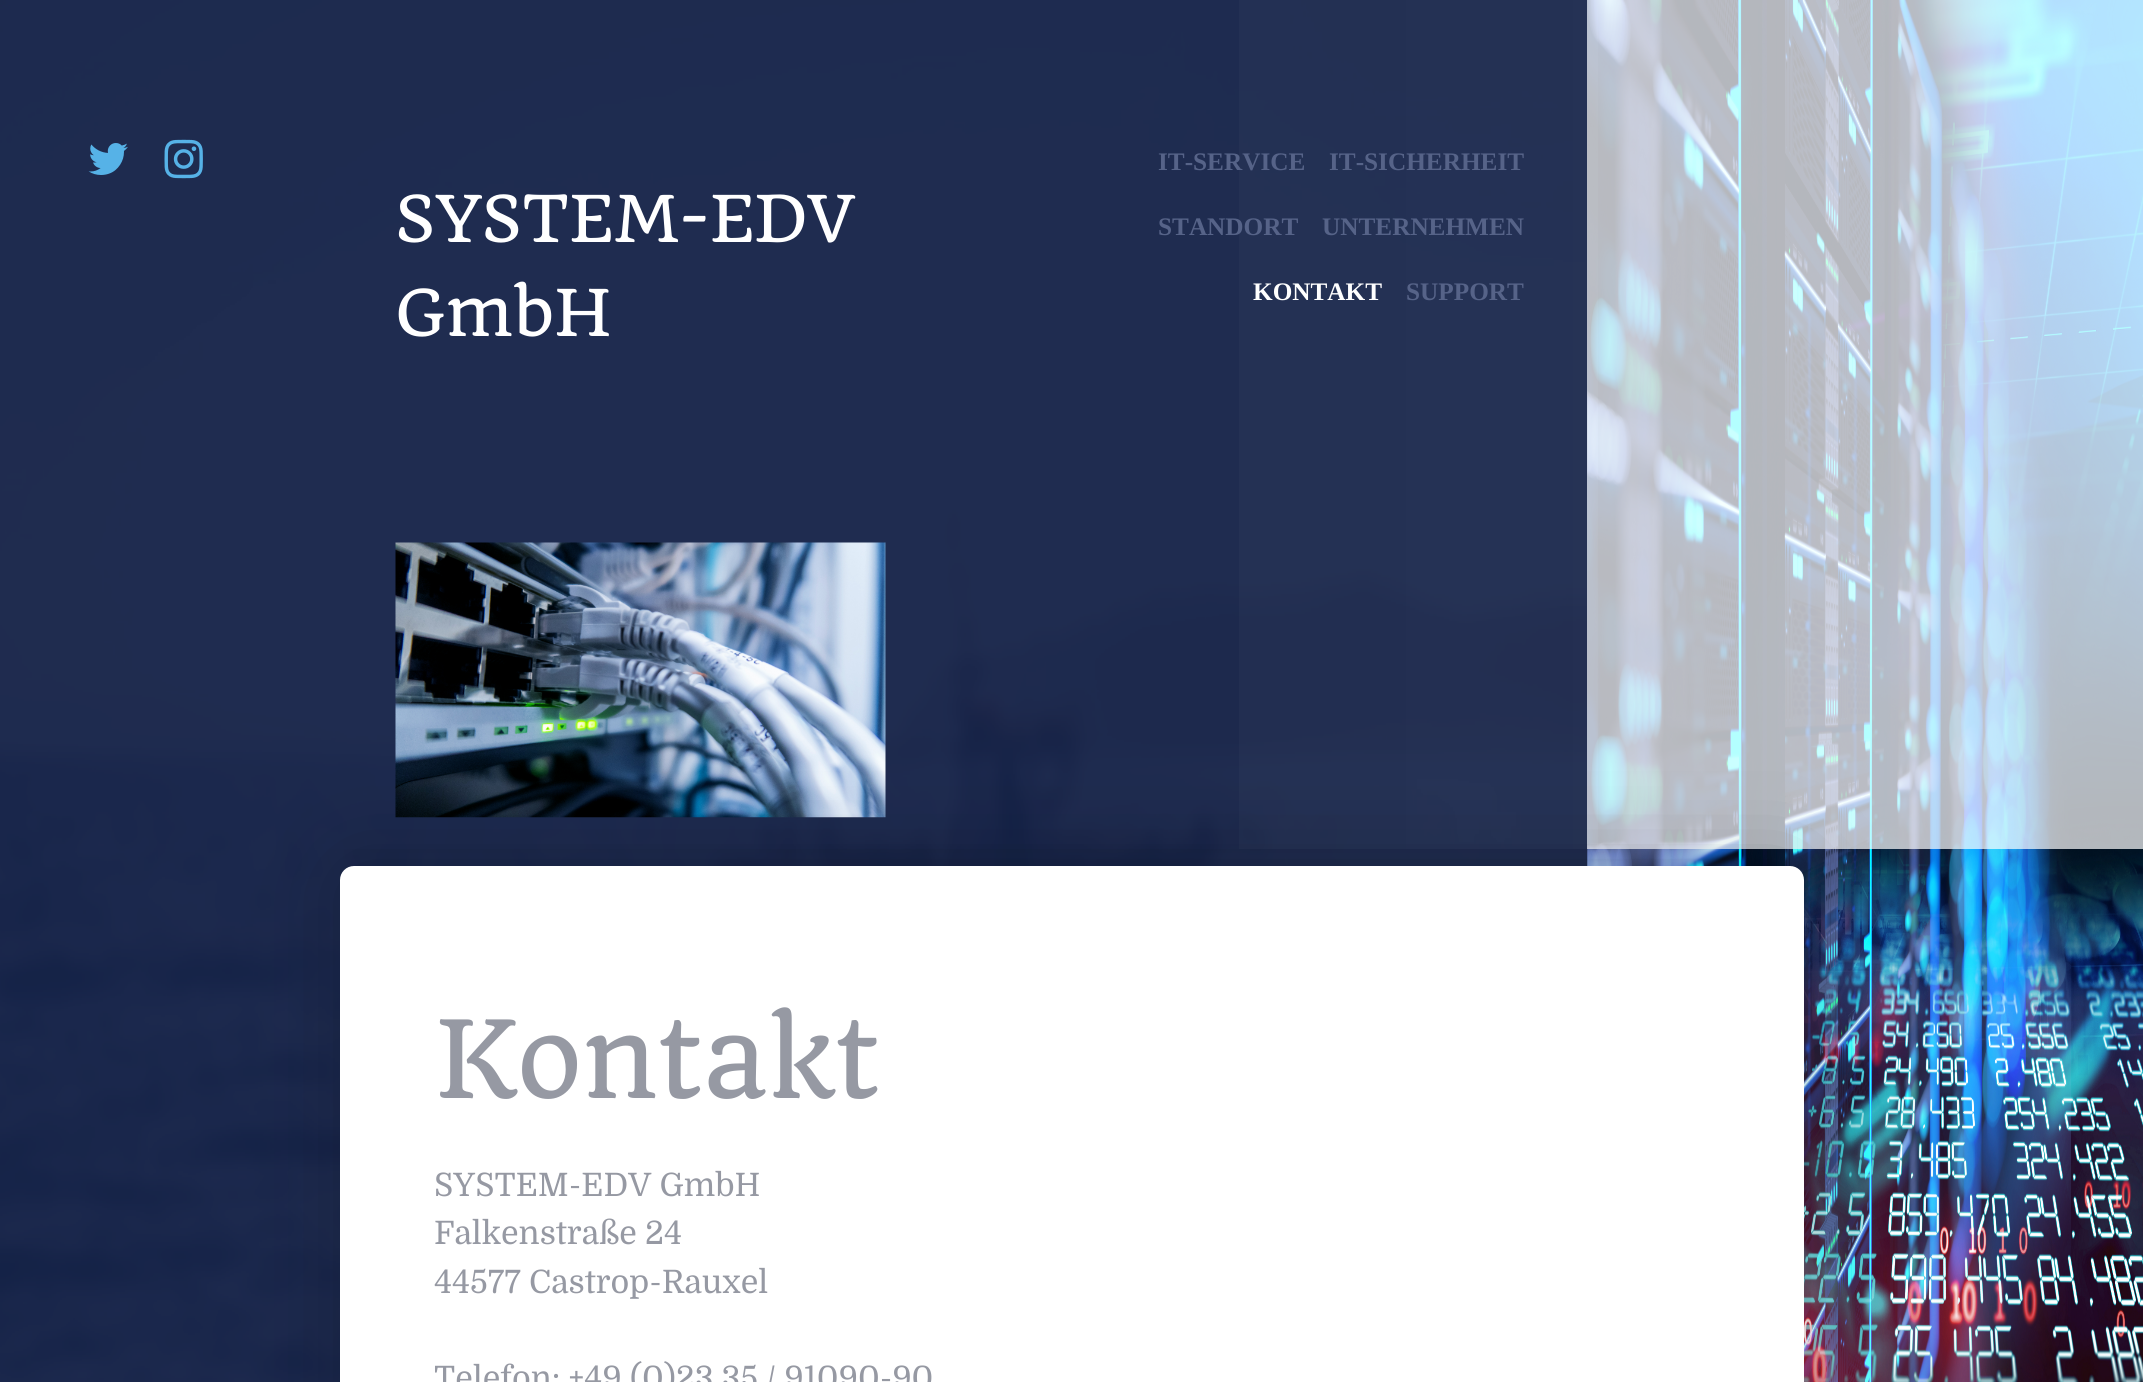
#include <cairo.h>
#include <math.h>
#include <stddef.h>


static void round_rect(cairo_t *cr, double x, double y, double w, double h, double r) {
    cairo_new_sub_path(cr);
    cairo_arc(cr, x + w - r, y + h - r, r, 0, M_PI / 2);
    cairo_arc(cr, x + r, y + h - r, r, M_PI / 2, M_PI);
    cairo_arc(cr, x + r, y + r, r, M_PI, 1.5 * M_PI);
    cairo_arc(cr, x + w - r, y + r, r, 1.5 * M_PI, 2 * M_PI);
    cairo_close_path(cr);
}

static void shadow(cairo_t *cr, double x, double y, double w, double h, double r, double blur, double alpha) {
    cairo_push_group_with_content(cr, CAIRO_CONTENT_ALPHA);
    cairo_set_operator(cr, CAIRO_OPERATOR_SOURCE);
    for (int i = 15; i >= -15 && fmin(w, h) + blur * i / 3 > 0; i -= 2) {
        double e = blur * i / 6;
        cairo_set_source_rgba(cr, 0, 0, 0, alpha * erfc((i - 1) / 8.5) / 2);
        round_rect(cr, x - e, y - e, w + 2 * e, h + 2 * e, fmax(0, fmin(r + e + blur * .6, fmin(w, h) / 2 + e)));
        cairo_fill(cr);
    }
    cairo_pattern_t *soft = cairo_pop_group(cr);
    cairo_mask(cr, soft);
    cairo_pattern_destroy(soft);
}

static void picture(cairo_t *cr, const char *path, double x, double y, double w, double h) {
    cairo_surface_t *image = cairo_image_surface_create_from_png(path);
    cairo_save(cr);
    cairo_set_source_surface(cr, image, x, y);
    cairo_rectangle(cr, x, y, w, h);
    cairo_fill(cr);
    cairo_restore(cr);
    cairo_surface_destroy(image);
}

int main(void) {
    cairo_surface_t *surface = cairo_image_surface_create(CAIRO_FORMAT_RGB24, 2143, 1382);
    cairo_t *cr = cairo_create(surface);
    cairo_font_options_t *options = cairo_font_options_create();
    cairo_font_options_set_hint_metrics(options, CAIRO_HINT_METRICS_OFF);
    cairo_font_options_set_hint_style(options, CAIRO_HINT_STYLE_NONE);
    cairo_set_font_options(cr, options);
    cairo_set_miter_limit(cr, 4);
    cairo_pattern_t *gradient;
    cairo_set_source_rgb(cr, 0.082, 0.133, 0.282);
    cairo_paint(cr);
    picture(cr, "img1.png", 0, 0, 2143, 1382);
    picture(cr, "img2.png", 88, 143, 40, 32);
    picture(cr, "img3.png", 164, 139, 39, 40);
    cairo_save(cr);
    cairo_set_fill_rule(cr, CAIRO_FILL_RULE_EVEN_ODD);
    cairo_new_path(cr);
    cairo_move_to(cr, 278, 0);
    cairo_line_to(cr, 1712, 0);
    cairo_line_to(cr, 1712, 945);
    cairo_line_to(cr, 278, 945);
    cairo_close_path(cr);
    cairo_move_to(cr, 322, 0);
    cairo_line_to(cr, 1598, 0);
    cairo_line_to(cr, 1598, 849);
    cairo_line_to(cr, 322, 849);
    cairo_close_path(cr);
    cairo_clip(cr);
    cairo_set_source_rgb(cr, 0, 0, 0);
    shadow(cr, 357, 18, 1276, 848, 0, 26, 0.05);
    cairo_restore(cr);
    gradient = cairo_pattern_create_linear(322, 424, 1598, 424);
    cairo_pattern_add_color_stop_rgba(gradient, 0, 1, 1, 1, 0);
    cairo_pattern_add_color_stop_rgba(gradient, 1, 1, 1, 1, 0.03);
    cairo_set_source(cr, gradient);
    cairo_pattern_destroy(gradient);
    cairo_rectangle(cr, 1239, 0, 359, 849);
    cairo_fill(cr);
    cairo_select_font_face(cr, "Quando", CAIRO_FONT_SLANT_NORMAL, CAIRO_FONT_WEIGHT_NORMAL);
    cairo_set_font_size(cr, 63);
    cairo_set_source_rgb(cr, 1, 1, 1);
    cairo_move_to(cr, 395, 242);
    cairo_show_text(cr, "SYSTEM-EDV");
    cairo_move_to(cr, 395, 336);
    cairo_show_text(cr, "GmbH");
    cairo_select_font_face(cr, "Liberation Serif", CAIRO_FONT_SLANT_NORMAL, CAIRO_FONT_WEIGHT_BOLD);
    cairo_set_font_size(cr, 25.25);
    cairo_set_source_rgb(cr, 0.337, 0.388, 0.533);
    cairo_move_to(cr, 1158, 170);
    cairo_show_text(cr, "IT-SERVICE");
    cairo_move_to(cr, 1329, 170);
    cairo_show_text(cr, "IT-SICHERHEIT");
    cairo_move_to(cr, 1158, 235);
    cairo_show_text(cr, "STANDORT");
    cairo_move_to(cr, 1322, 235);
    cairo_show_text(cr, "UNTERNEHMEN");
    cairo_set_source_rgb(cr, 1, 1, 1);
    cairo_move_to(cr, 1253, 300);
    cairo_show_text(cr, "KONTAKT");
    cairo_set_source_rgb(cr, 0.337, 0.388, 0.533);
    cairo_move_to(cr, 1406, 300);
    cairo_show_text(cr, "SUPPORT");
    picture(cr, "img4.png", 395, 542, 491, 276);
    cairo_set_source_rgba(cr, 1, 1, 1, 0.7);
    cairo_rectangle(cr, 1587, 0, 556, 849);
    cairo_fill(cr);
    cairo_set_source_rgb(cr, 0, 0, 0);
    shadow(cr, 340, 866, 1464, 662, 14, 44, 0.2);
    cairo_set_source_rgb(cr, 1, 1, 1);
    round_rect(cr, 340, 866, 1464, 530, 14);
    cairo_fill(cr);
    cairo_select_font_face(cr, "Quando", CAIRO_FONT_SLANT_NORMAL, CAIRO_FONT_WEIGHT_NORMAL);
    cairo_set_font_size(cr, 105);
    cairo_set_source_rgb(cr, 0.588, 0.6, 0.639);
    cairo_move_to(cr, 434, 1098);
    cairo_show_text(cr, "Kontakt");
    cairo_select_font_face(cr, "Domine", CAIRO_FONT_SLANT_NORMAL, CAIRO_FONT_WEIGHT_NORMAL);
    cairo_set_font_size(cr, 32.25);
    cairo_move_to(cr, 434, 1196);
    cairo_show_text(cr, "SYSTEM-EDV GmbH");
    cairo_move_to(cr, 434, 1244);
    cairo_show_text(cr, "Falkenstraße 24");
    cairo_move_to(cr, 434, 1293);
    cairo_show_text(cr, "44577 Castrop-Rauxel");
    cairo_move_to(cr, 434, 1389);
    cairo_show_text(cr, "Telefon: +49 (0)23 35 / 91090-90");
    cairo_surface_write_to_png(surface, "page.png");
    cairo_font_options_destroy(options);
    cairo_destroy(cr);
    cairo_surface_destroy(surface);
    return 0;
}
